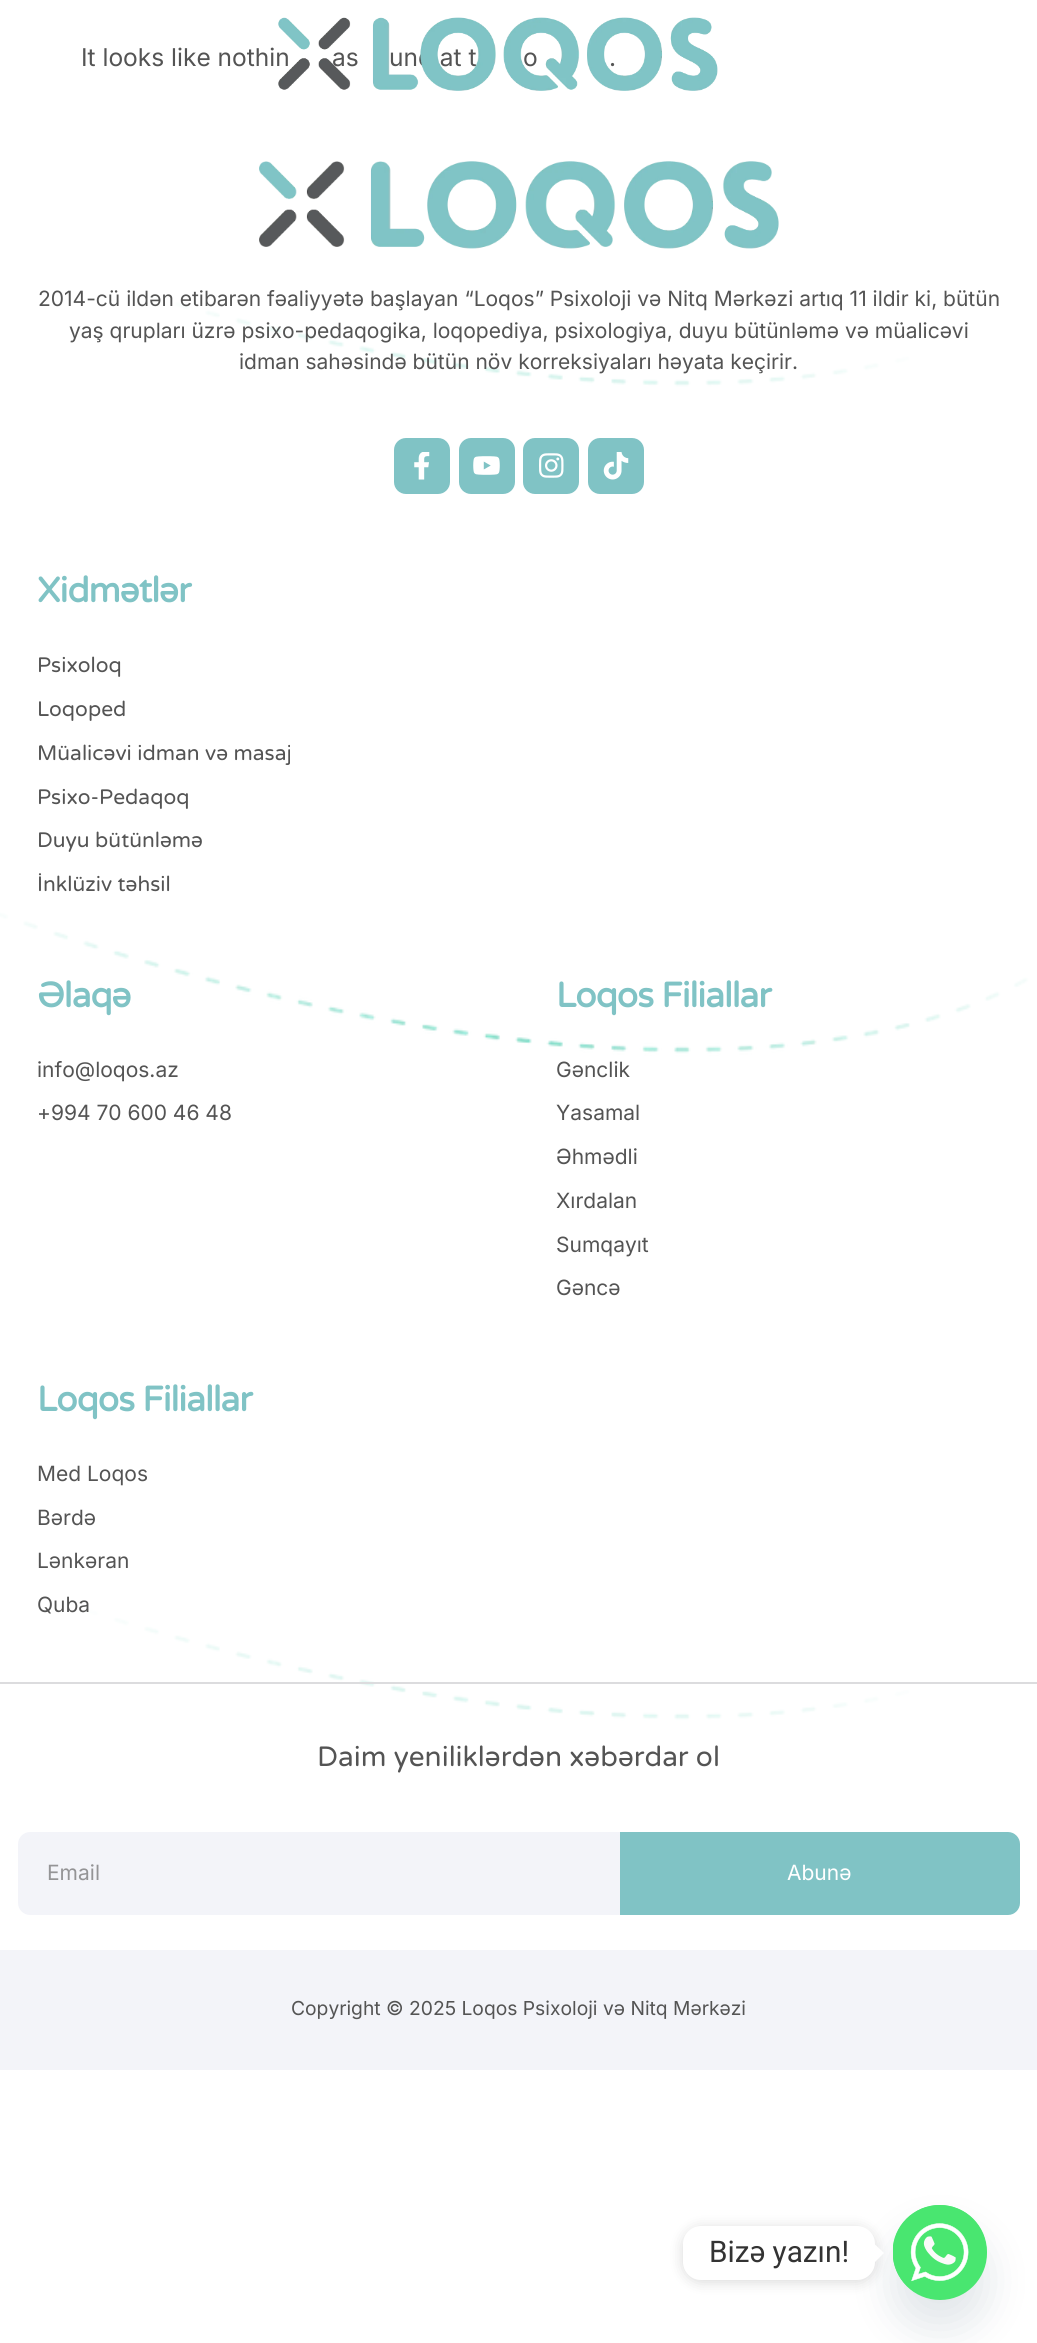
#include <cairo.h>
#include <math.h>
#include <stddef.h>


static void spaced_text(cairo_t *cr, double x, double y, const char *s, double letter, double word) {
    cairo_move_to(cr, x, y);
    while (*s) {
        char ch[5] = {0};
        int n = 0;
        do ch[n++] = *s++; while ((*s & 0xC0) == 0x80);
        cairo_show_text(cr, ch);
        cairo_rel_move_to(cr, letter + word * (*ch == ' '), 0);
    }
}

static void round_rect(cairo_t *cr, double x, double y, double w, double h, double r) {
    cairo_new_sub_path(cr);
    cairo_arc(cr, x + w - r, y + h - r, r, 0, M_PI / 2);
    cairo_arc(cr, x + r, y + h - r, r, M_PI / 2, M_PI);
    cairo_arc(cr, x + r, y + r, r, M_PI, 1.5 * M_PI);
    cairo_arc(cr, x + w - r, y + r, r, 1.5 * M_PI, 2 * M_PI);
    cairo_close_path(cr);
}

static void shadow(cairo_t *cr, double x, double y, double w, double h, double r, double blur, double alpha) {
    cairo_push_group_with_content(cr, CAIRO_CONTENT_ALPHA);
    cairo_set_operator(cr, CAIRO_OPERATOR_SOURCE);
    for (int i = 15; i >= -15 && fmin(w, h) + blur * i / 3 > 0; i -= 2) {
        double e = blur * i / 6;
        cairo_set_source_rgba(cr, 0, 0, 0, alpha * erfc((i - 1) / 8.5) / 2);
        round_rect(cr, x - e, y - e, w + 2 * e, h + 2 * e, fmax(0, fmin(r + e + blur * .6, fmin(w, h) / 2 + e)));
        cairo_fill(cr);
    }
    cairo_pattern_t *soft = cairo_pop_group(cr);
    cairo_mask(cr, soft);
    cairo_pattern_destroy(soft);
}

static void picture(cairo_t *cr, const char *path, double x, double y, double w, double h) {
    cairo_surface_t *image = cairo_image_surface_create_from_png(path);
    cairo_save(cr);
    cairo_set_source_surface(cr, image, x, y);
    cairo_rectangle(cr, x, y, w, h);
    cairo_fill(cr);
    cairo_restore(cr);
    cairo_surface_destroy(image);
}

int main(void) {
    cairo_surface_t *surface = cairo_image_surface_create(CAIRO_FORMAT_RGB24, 1037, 2343);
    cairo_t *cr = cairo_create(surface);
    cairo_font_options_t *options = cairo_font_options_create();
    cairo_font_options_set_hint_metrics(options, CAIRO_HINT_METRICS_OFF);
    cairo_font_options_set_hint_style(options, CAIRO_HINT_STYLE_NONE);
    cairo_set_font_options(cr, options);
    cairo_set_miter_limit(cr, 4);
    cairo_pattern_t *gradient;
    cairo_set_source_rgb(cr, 1, 1, 1);
    cairo_paint(cr);
    cairo_select_font_face(cr, "Inter", CAIRO_FONT_SLANT_NORMAL, CAIRO_FONT_WEIGHT_NORMAL);
    cairo_set_font_size(cr, 24.5);
    cairo_set_source_rgb(cr, 0.329, 0.329, 0.329);
    cairo_move_to(cr, 81, 66);
    cairo_show_text(cr, "It looks like nothin");
    cairo_move_to(cr, 332, 66);
    cairo_show_text(cr, "as");
    cairo_move_to(cr, 389, 66);
    cairo_show_text(cr, "und at t");
    cairo_move_to(cr, 523, 66);
    cairo_show_text(cr, "o");
    cairo_move_to(cr, 609, 66);
    cairo_show_text(cr, ".");
    picture(cr, "img1.png", 278, 17, 440, 74);
    picture(cr, "img2.png", 0, 296, 1029, 1425);
    picture(cr, "img3.png", 259, 161, 520, 88);
    gradient = cairo_pattern_create_radial(0, 0, 0, 0, 0, 1);
    cairo_pattern_set_matrix(gradient, &(cairo_matrix_t){1.0 / 734, 0, 0, 1.0 / 1308, -1.0 * 519 / 734, -1.0 * 1025 / 1308});
    cairo_pattern_add_color_stop_rgba(gradient, 0, 1, 1, 1, 0.5);
    cairo_pattern_add_color_stop_rgba(gradient, 0.75, 1, 1, 1, 1);
    cairo_set_source(cr, gradient);
    cairo_pattern_destroy(gradient);
    cairo_rectangle(cr, 0, 296, 1029, 1425);
    cairo_fill(cr);
    cairo_set_font_size(cr, 21);
    cairo_set_source_rgb(cr, 0.329, 0.329, 0.329);
    cairo_move_to(cr, 38, 306);
    cairo_show_text(cr, "2014-cü ildən etibarən fəaliyyətə başlayan “Loqos” Psixoloji və Nitq Mərkəzi artıq 11 ildir ki, bütün");
    cairo_move_to(cr, 69, 338);
    cairo_show_text(cr, "yaş qrupları üzrə psixo-pedaqogika, loqopediya, psixologiya, duyu bütünləmə və müalicəvi");
    cairo_move_to(cr, 239, 369);
    cairo_show_text(cr, "idman sahəsində bütün növ korreksiyaları həyata keçirir.");
    cairo_set_source_rgb(cr, 0.502, 0.765, 0.773);
    round_rect(cr, 394, 438, 56, 56, 12);
    cairo_fill(cr);
    picture(cr, "img4.png", 414, 452, 16, 28);
    round_rect(cr, 459, 438, 56, 56, 12);
    cairo_fill(cr);
    picture(cr, "img5.png", 473, 456, 27, 19);
    round_rect(cr, 523, 438, 56, 56, 12);
    cairo_fill(cr);
    picture(cr, "img6.png", 539, 453, 25, 25);
    round_rect(cr, 588, 438, 56, 56, 12);
    cairo_fill(cr);
    picture(cr, "img7.png", 603, 452, 26, 28);
    cairo_set_source_rgb(cr, 0.863, 0.863, 0.871);
    cairo_rectangle(cr, 0, 1682, 1037, 2);
    cairo_fill(cr);
    cairo_select_font_face(cr, "Varela Round", CAIRO_FONT_SLANT_NORMAL, CAIRO_FONT_WEIGHT_BOLD);
    cairo_set_font_size(cr, 35);
    cairo_set_source_rgb(cr, 0.502, 0.765, 0.773);
    spaced_text(cr, 37, 602, "Xidmətlər", -0.9, 0);
    cairo_select_font_face(cr, "Varela Round", CAIRO_FONT_SLANT_NORMAL, CAIRO_FONT_WEIGHT_NORMAL);
    cairo_set_font_size(cr, 21);
    cairo_set_source_rgb(cr, 0.329, 0.329, 0.329);
    cairo_move_to(cr, 37, 672);
    cairo_show_text(cr, "Psixoloq");
    cairo_move_to(cr, 37, 716);
    cairo_show_text(cr, "Loqoped");
    cairo_move_to(cr, 37, 760);
    cairo_show_text(cr, "Müalicəvi idman və masaj");
    cairo_move_to(cr, 37, 804);
    cairo_show_text(cr, "Psixo-Pedaqoq");
    cairo_move_to(cr, 37, 847);
    cairo_show_text(cr, "Duyu bütünləmə");
    cairo_move_to(cr, 37, 891);
    cairo_show_text(cr, "İnklüziv təhsil");
    cairo_select_font_face(cr, "Varela Round", CAIRO_FONT_SLANT_NORMAL, CAIRO_FONT_WEIGHT_BOLD);
    cairo_set_font_size(cr, 35);
    cairo_set_source_rgb(cr, 0.502, 0.765, 0.773);
    spaced_text(cr, 37, 1007, "Əlaqə", -0.9, 0);
    cairo_select_font_face(cr, "Inter", CAIRO_FONT_SLANT_NORMAL, CAIRO_FONT_WEIGHT_NORMAL);
    cairo_set_font_size(cr, 21);
    cairo_set_source_rgb(cr, 0.329, 0.329, 0.329);
    cairo_move_to(cr, 37, 1077);
    cairo_show_text(cr, "info@loqos.az");
    cairo_move_to(cr, 37, 1120);
    cairo_show_text(cr, "+994 70 600 46 48");
    cairo_select_font_face(cr, "Varela Round", CAIRO_FONT_SLANT_NORMAL, CAIRO_FONT_WEIGHT_BOLD);
    cairo_set_font_size(cr, 35);
    cairo_set_source_rgb(cr, 0.502, 0.765, 0.773);
    spaced_text(cr, 556, 1007, "Loqos Filiallar", -0.9, 0);
    cairo_select_font_face(cr, "Inter", CAIRO_FONT_SLANT_NORMAL, CAIRO_FONT_WEIGHT_NORMAL);
    cairo_set_font_size(cr, 21);
    cairo_set_source_rgb(cr, 0.329, 0.329, 0.329);
    cairo_move_to(cr, 556, 1077);
    cairo_show_text(cr, "Gənclik");
    cairo_move_to(cr, 556, 1120);
    cairo_show_text(cr, "Yasamal");
    cairo_move_to(cr, 556, 1164);
    cairo_show_text(cr, "Əhmədli");
    cairo_move_to(cr, 556, 1208);
    cairo_show_text(cr, "Xırdalan");
    cairo_move_to(cr, 556, 1252);
    cairo_show_text(cr, "Sumqayıt");
    cairo_move_to(cr, 556, 1295);
    cairo_show_text(cr, "Gəncə");
    cairo_select_font_face(cr, "Varela Round", CAIRO_FONT_SLANT_NORMAL, CAIRO_FONT_WEIGHT_BOLD);
    cairo_set_font_size(cr, 35);
    cairo_set_source_rgb(cr, 0.502, 0.765, 0.773);
    spaced_text(cr, 37, 1411, "Loqos Filiallar", -0.9, 0);
    cairo_select_font_face(cr, "Inter", CAIRO_FONT_SLANT_NORMAL, CAIRO_FONT_WEIGHT_NORMAL);
    cairo_set_font_size(cr, 21);
    cairo_set_source_rgb(cr, 0.329, 0.329, 0.329);
    cairo_move_to(cr, 37, 1481);
    cairo_show_text(cr, "Med Loqos");
    cairo_move_to(cr, 37, 1525);
    cairo_show_text(cr, "Bərdə");
    cairo_move_to(cr, 37, 1568);
    cairo_show_text(cr, "Lənkəran");
    cairo_move_to(cr, 37, 1612);
    cairo_show_text(cr, "Quba");
    cairo_select_font_face(cr, "Varela Round", CAIRO_FONT_SLANT_NORMAL, CAIRO_FONT_WEIGHT_NORMAL);
    cairo_set_font_size(cr, 28);
    cairo_move_to(cr, 317, 1766);
    cairo_show_text(cr, "Daim yeniliklərdən xəbərdar ol");
    cairo_set_source_rgb(cr, 0.953, 0.957, 0.976);
    cairo_new_path(cr);
    cairo_move_to(cr, 30, 1833);
    cairo_line_to(cr, 619, 1833);
    cairo_line_to(cr, 619, 1914);
    cairo_line_to(cr, 30, 1914);
    cairo_curve_to(cr, 24, 1914, 19, 1909, 19, 1903);
    cairo_line_to(cr, 19, 1844);
    cairo_curve_to(cr, 19, 1838, 24, 1833, 30, 1833);
    cairo_close_path(cr);
    cairo_fill_preserve(cr);
    cairo_stroke(cr);
    cairo_select_font_face(cr, "Inter", CAIRO_FONT_SLANT_NORMAL, CAIRO_FONT_WEIGHT_NORMAL);
    cairo_set_font_size(cr, 21);
    cairo_set_source_rgb(cr, 0.58, 0.58, 0.588);
    cairo_move_to(cr, 47, 1880);
    cairo_show_text(cr, "Email");
    cairo_set_source_rgb(cr, 0.502, 0.765, 0.773);
    cairo_new_path(cr);
    cairo_move_to(cr, 620, 1832);
    cairo_line_to(cr, 1008, 1832);
    cairo_curve_to(cr, 1014.5, 1832, 1020, 1837.5, 1020, 1844);
    cairo_line_to(cr, 1020, 1903);
    cairo_curve_to(cr, 1020, 1909.5, 1014.5, 1915, 1008, 1915);
    cairo_line_to(cr, 620, 1915);
    cairo_close_path(cr);
    cairo_fill(cr);
    cairo_set_source_rgb(cr, 1, 1, 1);
    cairo_move_to(cr, 787, 1880);
    cairo_show_text(cr, "Abunə");
    cairo_set_source_rgb(cr, 0.953, 0.957, 0.976);
    cairo_rectangle(cr, 0, 1950, 1037, 120);
    cairo_fill(cr);
    cairo_set_font_size(cr, 19.25);
    cairo_set_source_rgb(cr, 0.329, 0.329, 0.329);
    cairo_move_to(cr, 291, 2015);
    cairo_show_text(cr, "Copyright © 2025 Loqos Psixoloji və Nitq Mərkəzi");
    cairo_set_source_rgb(cr, 0.286, 0.408, 0.494);
    shadow(cr, 893, 2233, 94, 95, 47, 21, 0.16);
    cairo_set_source_rgb(cr, 0.286, 0.902, 0.439);
    round_rect(cr, 893, 2205, 94, 95, 47);
    cairo_fill(cr);
    picture(cr, "img8.png", 893, 2205, 94, 87);
    cairo_set_source_rgb(cr, 0, 0, 0);
    shadow(cr, 683, 2228, 192, 54, 18, 7, 0.15);
    cairo_set_source_rgb(cr, 1, 1, 1);
    round_rect(cr, 683, 2226, 192, 54, 18);
    cairo_fill(cr);
    cairo_select_font_face(cr, "Roboto", CAIRO_FONT_SLANT_NORMAL, CAIRO_FONT_WEIGHT_NORMAL);
    cairo_set_font_size(cr, 29.75);
    cairo_set_source_rgb(cr, 0.2, 0.2, 0.2);
    cairo_move_to(cr, 709, 2262);
    cairo_show_text(cr, "Bizə yazın!");
    cairo_set_source_rgb(cr, 1, 1, 1);
    cairo_new_path(cr);
    cairo_move_to(cr, 875, 2262);
    cairo_line_to(cr, 875, 2244.5);
    cairo_line_to(cr, 884, 2253);
    cairo_close_path(cr);
    cairo_fill(cr);
    cairo_surface_write_to_png(surface, "page.png");
    cairo_font_options_destroy(options);
    cairo_destroy(cr);
    cairo_surface_destroy(surface);
    return 0;
}
